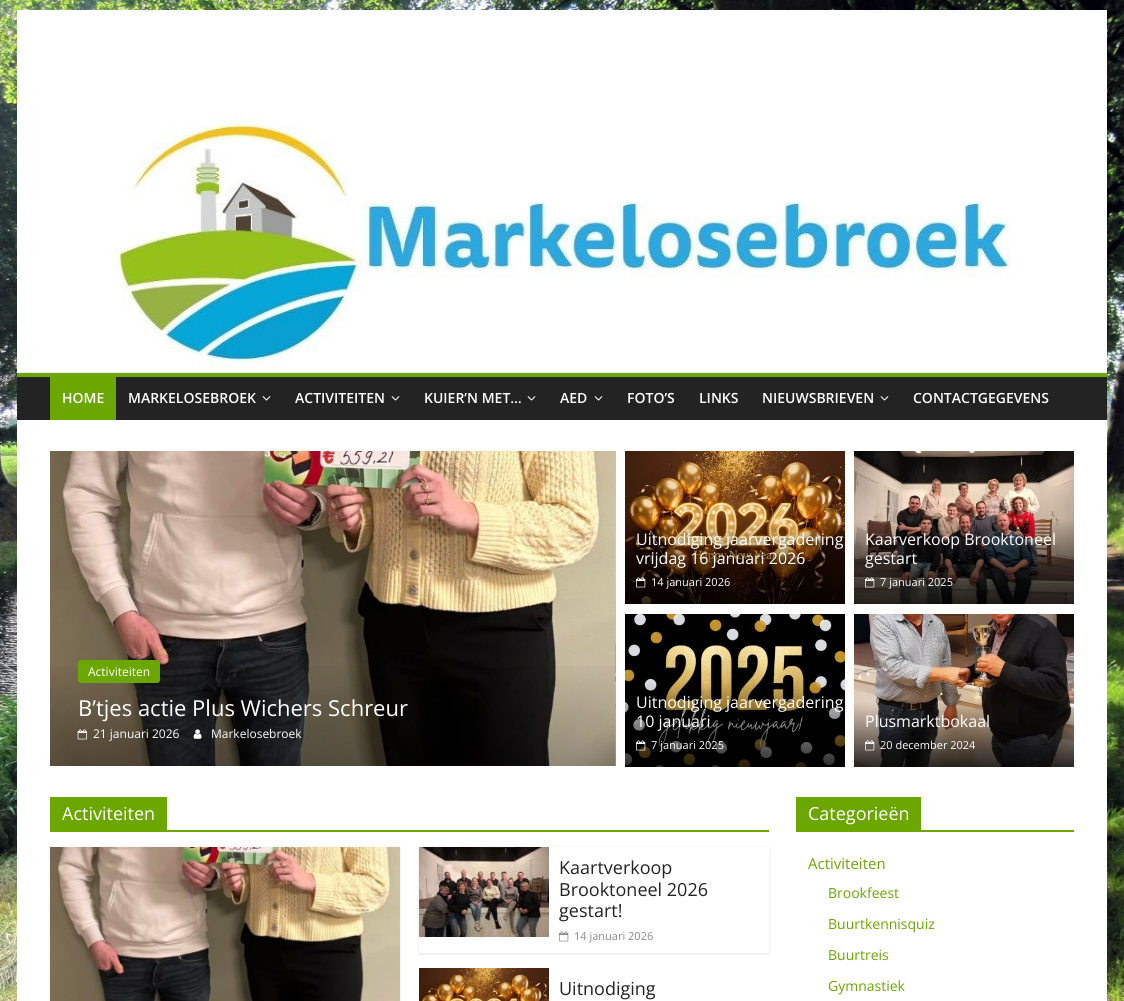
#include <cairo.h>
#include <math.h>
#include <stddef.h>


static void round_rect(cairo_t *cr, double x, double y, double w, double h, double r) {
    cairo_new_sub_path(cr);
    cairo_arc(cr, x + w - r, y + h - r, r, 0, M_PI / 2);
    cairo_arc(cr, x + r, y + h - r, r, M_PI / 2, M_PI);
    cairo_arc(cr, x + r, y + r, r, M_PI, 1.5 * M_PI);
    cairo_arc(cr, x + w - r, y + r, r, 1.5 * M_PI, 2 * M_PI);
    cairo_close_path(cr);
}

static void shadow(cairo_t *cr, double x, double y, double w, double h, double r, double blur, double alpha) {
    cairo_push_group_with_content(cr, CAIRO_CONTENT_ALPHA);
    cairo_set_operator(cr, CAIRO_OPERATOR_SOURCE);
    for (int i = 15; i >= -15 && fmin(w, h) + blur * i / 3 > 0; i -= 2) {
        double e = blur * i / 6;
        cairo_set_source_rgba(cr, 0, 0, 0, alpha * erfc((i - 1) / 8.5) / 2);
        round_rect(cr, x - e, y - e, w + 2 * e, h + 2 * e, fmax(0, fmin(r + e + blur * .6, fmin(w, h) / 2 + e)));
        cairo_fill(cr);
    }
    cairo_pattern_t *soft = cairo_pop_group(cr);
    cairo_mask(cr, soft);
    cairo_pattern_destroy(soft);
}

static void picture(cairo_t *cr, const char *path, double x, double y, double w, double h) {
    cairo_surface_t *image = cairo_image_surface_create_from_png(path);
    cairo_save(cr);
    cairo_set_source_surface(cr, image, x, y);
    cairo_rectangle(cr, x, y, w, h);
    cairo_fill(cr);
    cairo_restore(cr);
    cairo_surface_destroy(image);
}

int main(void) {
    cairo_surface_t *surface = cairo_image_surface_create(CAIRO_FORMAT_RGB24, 1124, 1001);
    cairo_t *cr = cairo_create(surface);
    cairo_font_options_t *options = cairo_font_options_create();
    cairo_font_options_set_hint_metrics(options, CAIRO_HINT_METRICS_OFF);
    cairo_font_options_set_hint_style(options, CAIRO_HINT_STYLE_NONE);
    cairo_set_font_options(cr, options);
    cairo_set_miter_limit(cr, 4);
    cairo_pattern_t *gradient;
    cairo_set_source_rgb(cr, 1, 1, 1);
    cairo_paint(cr);
    picture(cr, "img1.png", 0, 0, 1124, 1001);
    cairo_set_source_rgb(cr, 1, 1, 1);
    cairo_rectangle(cr, 17, 10, 1090, 991);
    cairo_fill(cr);
    picture(cr, "img2.png", 107, 112, 903, 256);
    cairo_set_source_rgb(cr, 0.918, 0.918, 0.918);
    cairo_rectangle(cr, 17, 372, 1090, 1);
    cairo_fill(cr);
    cairo_set_source_rgb(cr, 0.137, 0.137, 0.137);
    cairo_rectangle(cr, 17, 377, 1090, 43);
    cairo_fill(cr);
    cairo_set_source_rgb(cr, 0.424, 0.651, 0);
    cairo_rectangle(cr, 17, 373, 1090, 4);
    cairo_fill(cr);
    cairo_rectangle(cr, 50, 377, 66, 43);
    cairo_fill(cr);
    cairo_select_font_face(cr, "Open Sans SemiBold", CAIRO_FONT_SLANT_NORMAL, CAIRO_FONT_WEIGHT_NORMAL);
    cairo_set_font_size(cr, 14);
    cairo_set_source_rgb(cr, 1, 1, 1);
    cairo_move_to(cr, 62, 403);
    cairo_show_text(cr, "HOME");
    cairo_move_to(cr, 128, 403);
    cairo_show_text(cr, "MARKELOSEBROEK");
    picture(cr, "img3.png", 262, 396, 9, 5);
    cairo_move_to(cr, 295, 403);
    cairo_show_text(cr, "ACTIVITEITEN");
    picture(cr, "img3.png", 391, 396, 9, 5);
    cairo_move_to(cr, 424, 403);
    cairo_show_text(cr, "KUIER’N MET…");
    picture(cr, "img3.png", 527, 396, 9, 5);
    cairo_move_to(cr, 560, 403);
    cairo_show_text(cr, "AED");
    picture(cr, "img3.png", 594, 396, 9, 5);
    cairo_move_to(cr, 627, 403);
    cairo_show_text(cr, "FOTO’S");
    cairo_move_to(cr, 699, 403);
    cairo_show_text(cr, "LINKS");
    cairo_move_to(cr, 762, 403);
    cairo_show_text(cr, "NIEUWSBRIEVEN");
    picture(cr, "img3.png", 880, 396, 9, 5);
    cairo_move_to(cr, 913, 403);
    cairo_show_text(cr, "CONTACTGEGEVENS");
    picture(cr, "img4.png", 50, 451, 566, 315);
    gradient = cairo_pattern_create_linear(333, 658, 333, 766);
    cairo_pattern_add_color_stop_rgba(gradient, 0, 0, 0, 0, 0);
    cairo_pattern_add_color_stop_rgba(gradient, 1, 0, 0, 0, 0.3);
    cairo_set_source(cr, gradient);
    cairo_pattern_destroy(gradient);
    cairo_rectangle(cr, 50, 666, 566, 100);
    cairo_fill(cr);
    cairo_set_source_rgb(cr, 0.424, 0.651, 0);
    round_rect(cr, 78, 660, 82, 23, 3);
    cairo_fill(cr);
    cairo_select_font_face(cr, "Open Sans", CAIRO_FONT_SLANT_NORMAL, CAIRO_FONT_WEIGHT_NORMAL);
    cairo_set_font_size(cr, 12);
    cairo_set_source_rgb(cr, 1, 1, 1);
    cairo_move_to(cr, 88, 676);
    cairo_show_text(cr, "Activiteiten");
    cairo_set_font_size(cr, 22);
    cairo_move_to(cr, 78, 716);
    cairo_show_text(cr, "B’tjes actie Plus Wichers Schreur");
    picture(cr, "img5.png", 77, 729, 10, 11);
    cairo_set_font_size(cr, 12);
    cairo_move_to(cr, 93, 738);
    cairo_show_text(cr, "21 januari 2026");
    picture(cr, "img6.png", 193, 729, 9, 10);
    cairo_move_to(cr, 211, 738);
    cairo_show_text(cr, "Markelosebroek");
    picture(cr, "img7.png", 615, 451, 1, 315);
    picture(cr, "img8.png", 625, 451, 220, 153);
    cairo_set_font_size(cr, 16);
    cairo_move_to(cr, 636, 545);
    cairo_show_text(cr, "Uitnodiging jaarvergadering");
    cairo_move_to(cr, 636, 564);
    cairo_show_text(cr, "vrijdag 16 januari 2026");
    picture(cr, "img9.png", 636, 577, 10, 11);
    cairo_set_font_size(cr, 11);
    cairo_move_to(cr, 651, 586);
    cairo_show_text(cr, "14 januari 2026");
    picture(cr, "img10.png", 854, 451, 220, 153);
    cairo_set_font_size(cr, 16);
    cairo_move_to(cr, 865, 545);
    cairo_show_text(cr, "Kaarverkoop Brooktoneel");
    cairo_move_to(cr, 865, 564);
    cairo_show_text(cr, "gestart");
    picture(cr, "img11.png", 865, 577, 10, 11);
    cairo_set_font_size(cr, 11);
    cairo_move_to(cr, 880, 586);
    cairo_show_text(cr, "7 januari 2025");
    picture(cr, "img12.png", 625, 614, 220, 153);
    cairo_set_font_size(cr, 16);
    cairo_move_to(cr, 636, 708);
    cairo_show_text(cr, "Uitnodiging jaarvergadering");
    cairo_move_to(cr, 636, 727);
    cairo_show_text(cr, "10 januari");
    picture(cr, "img13.png", 636, 740, 10, 11);
    cairo_set_font_size(cr, 11);
    cairo_move_to(cr, 651, 749);
    cairo_show_text(cr, "7 januari 2025");
    picture(cr, "img14.png", 854, 614, 220, 153);
    cairo_set_font_size(cr, 16);
    cairo_move_to(cr, 865, 727);
    cairo_show_text(cr, "Plusmarktbokaal");
    picture(cr, "img15.png", 865, 740, 10, 11);
    cairo_set_font_size(cr, 11);
    cairo_move_to(cr, 880, 749);
    cairo_show_text(cr, "20 december 2024");
    cairo_set_source_rgb(cr, 0.424, 0.651, 0);
    cairo_rectangle(cr, 50, 830, 719, 2);
    cairo_fill(cr);
    cairo_rectangle(cr, 50, 797, 117, 33);
    cairo_fill(cr);
    cairo_set_font_size(cr, 18);
    cairo_set_source_rgb(cr, 1, 1, 1);
    cairo_move_to(cr, 62, 820);
    cairo_show_text(cr, "Activiteiten");
    cairo_set_source_rgb(cr, 0, 0, 0);
    shadow(cr, 50, 848, 350, 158, 0, 1.5, 0.1);
    picture(cr, "img16.png", 50, 847, 350, 154);
    cairo_save(cr);
    cairo_set_fill_rule(cr, CAIRO_FILL_RULE_EVEN_ODD);
    cairo_new_path(cr);
    cairo_move_to(cr, 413, 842);
    cairo_line_to(cr, 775, 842);
    cairo_line_to(cr, 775, 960);
    cairo_line_to(cr, 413, 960);
    cairo_close_path(cr);
    cairo_move_to(cr, 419, 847);
    cairo_line_to(cr, 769, 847);
    cairo_line_to(cr, 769, 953);
    cairo_line_to(cr, 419, 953);
    cairo_close_path(cr);
    cairo_clip(cr);
    shadow(cr, 419, 848, 350, 106, 0, 1.5, 0.1);
    cairo_restore(cr);
    picture(cr, "img17.png", 419, 847, 130, 90);
    cairo_set_source_rgb(cr, 0.137, 0.137, 0.137);
    cairo_move_to(cr, 559, 874);
    cairo_show_text(cr, "Kaartverkoop");
    cairo_move_to(cr, 559, 896);
    cairo_show_text(cr, "Brooktoneel 2026");
    cairo_move_to(cr, 559, 917);
    cairo_show_text(cr, "gestart!");
    picture(cr, "img18.png", 559, 931, 10, 11);
    cairo_set_font_size(cr, 11);
    cairo_set_source_rgb(cr, 0.533, 0.533, 0.533);
    cairo_move_to(cr, 574, 940);
    cairo_show_text(cr, "14 januari 2026");
    picture(cr, "img19.png", 419, 968, 130, 33);
    cairo_set_font_size(cr, 18);
    cairo_set_source_rgb(cr, 0.137, 0.137, 0.137);
    cairo_move_to(cr, 559, 995);
    cairo_show_text(cr, "Uitnodiging");
    cairo_set_source_rgb(cr, 0.424, 0.651, 0);
    cairo_rectangle(cr, 796, 830, 278, 2);
    cairo_fill(cr);
    cairo_rectangle(cr, 796, 797, 125, 33);
    cairo_fill(cr);
    cairo_set_source_rgb(cr, 1, 1, 1);
    cairo_move_to(cr, 808, 820);
    cairo_show_text(cr, "Categorieën");
    cairo_set_font_size(cr, 15);
    cairo_set_source_rgb(cr, 0.424, 0.651, 0);
    cairo_move_to(cr, 808, 869);
    cairo_show_text(cr, "Activiteiten");
    cairo_set_font_size(cr, 14);
    cairo_move_to(cr, 828, 898);
    cairo_show_text(cr, "Brookfeest");
    cairo_move_to(cr, 828, 929);
    cairo_show_text(cr, "Buurtkennisquiz");
    cairo_move_to(cr, 828, 960);
    cairo_show_text(cr, "Buurtreis");
    cairo_move_to(cr, 828, 991);
    cairo_show_text(cr, "Gymnastiek");
    cairo_surface_write_to_png(surface, "page.png");
    cairo_font_options_destroy(options);
    cairo_destroy(cr);
    cairo_surface_destroy(surface);
    return 0;
}
